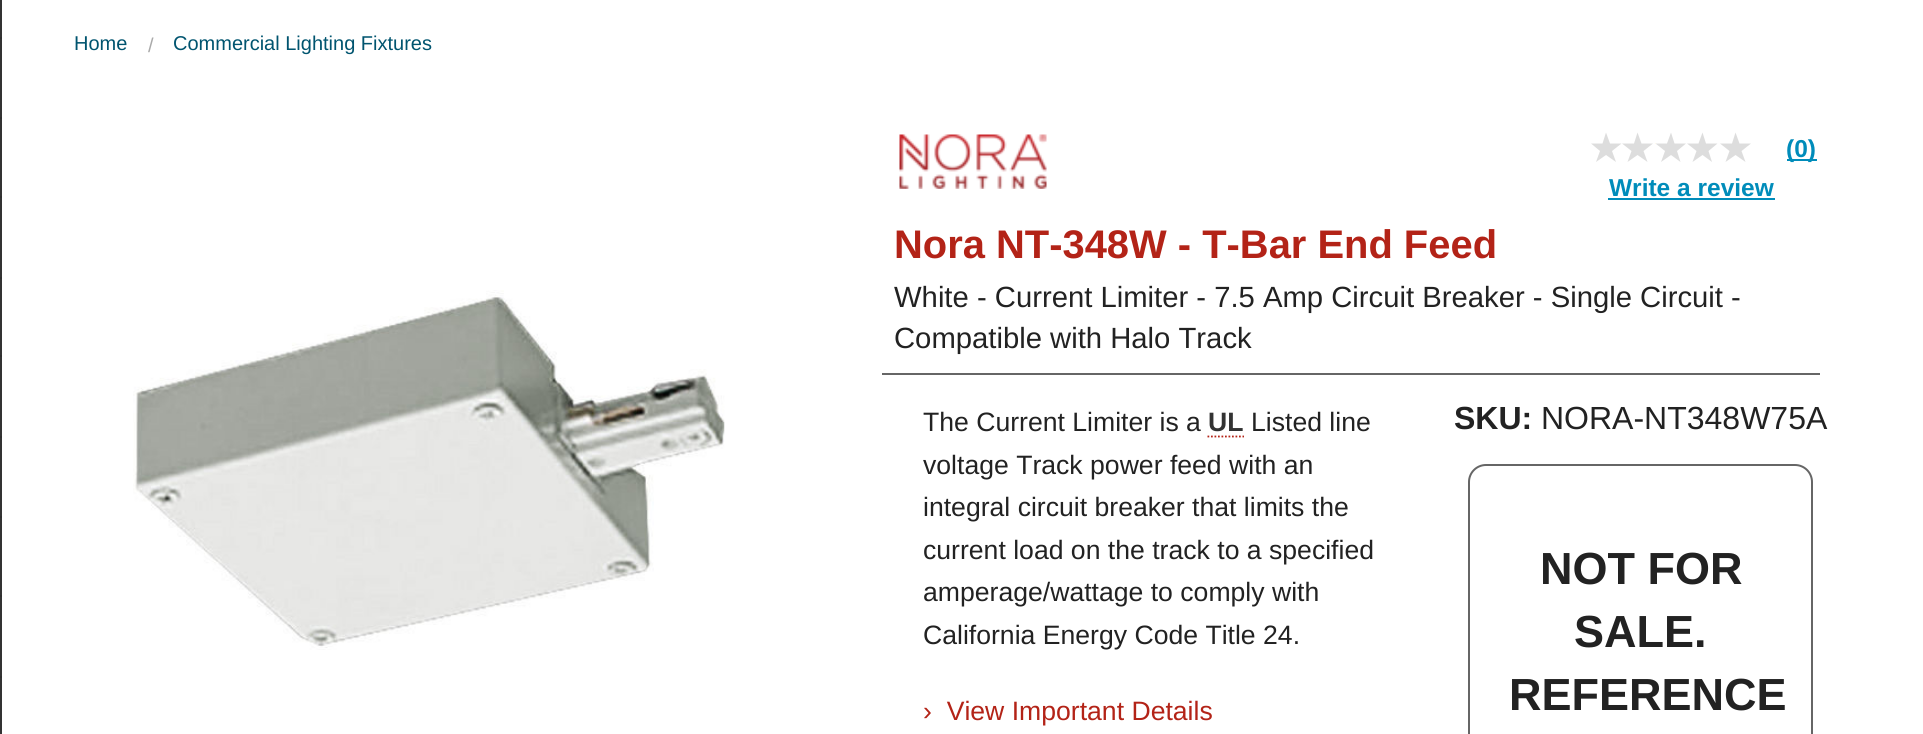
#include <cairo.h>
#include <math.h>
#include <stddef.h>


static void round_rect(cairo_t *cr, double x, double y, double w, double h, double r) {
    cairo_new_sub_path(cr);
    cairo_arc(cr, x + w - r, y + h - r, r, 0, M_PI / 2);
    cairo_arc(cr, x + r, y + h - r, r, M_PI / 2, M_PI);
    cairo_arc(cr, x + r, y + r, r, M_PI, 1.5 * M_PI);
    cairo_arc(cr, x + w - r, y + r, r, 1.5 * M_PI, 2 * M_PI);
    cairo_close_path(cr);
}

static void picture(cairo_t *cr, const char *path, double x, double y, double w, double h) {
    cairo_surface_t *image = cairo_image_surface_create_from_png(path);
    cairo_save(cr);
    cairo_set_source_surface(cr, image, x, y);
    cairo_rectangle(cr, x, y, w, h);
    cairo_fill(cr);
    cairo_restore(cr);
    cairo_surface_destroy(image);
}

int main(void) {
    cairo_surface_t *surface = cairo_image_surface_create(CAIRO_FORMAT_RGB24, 1923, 734);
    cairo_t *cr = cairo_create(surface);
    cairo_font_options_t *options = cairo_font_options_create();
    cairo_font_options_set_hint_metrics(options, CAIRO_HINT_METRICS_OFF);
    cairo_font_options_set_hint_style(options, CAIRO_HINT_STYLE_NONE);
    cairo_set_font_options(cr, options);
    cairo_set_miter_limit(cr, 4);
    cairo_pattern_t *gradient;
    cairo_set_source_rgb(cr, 1, 1, 1);
    cairo_paint(cr);
    cairo_set_source_rgb(cr, 0.2, 0.2, 0.2);
    cairo_rectangle(cr, 0, 0, 2, 734);
    cairo_fill(cr);
    cairo_set_source_rgb(cr, 0.18, 0.18, 0.18);
    cairo_rectangle(cr, 0, 37, 2, 2);
    cairo_fill(cr);
    cairo_rectangle(cr, 0, 117, 2, 2);
    cairo_fill(cr);
    cairo_rectangle(cr, 0, 196, 2, 2);
    cairo_fill(cr);
    cairo_rectangle(cr, 0, 277, 2, 2);
    cairo_fill(cr);
    cairo_rectangle(cr, 0, 355, 2, 2);
    cairo_fill(cr);
    cairo_rectangle(cr, 0, 436, 2, 2);
    cairo_fill(cr);
    cairo_rectangle(cr, 0, 516, 2, 2);
    cairo_fill(cr);
    cairo_rectangle(cr, 0, 595, 2, 2);
    cairo_fill(cr);
    cairo_rectangle(cr, 0, 676, 2, 2);
    cairo_fill(cr);
    cairo_select_font_face(cr, "Liberation Sans", CAIRO_FONT_SLANT_NORMAL, CAIRO_FONT_WEIGHT_NORMAL);
    cairo_set_font_size(cr, 20);
    cairo_set_source_rgb(cr, 0, 0.329, 0.435);
    cairo_move_to(cr, 74, 50);
    cairo_show_text(cr, "Home");
    cairo_set_source_rgb(cr, 0.667, 0.667, 0.667);
    cairo_move_to(cr, 148, 52);
    cairo_show_text(cr, "/");
    cairo_set_source_rgb(cr, 0, 0.329, 0.435);
    cairo_move_to(cr, 173, 50);
    cairo_show_text(cr, "Commercial Lighting Fixtures");
    picture(cr, "img1.png", 133, 290, 592, 360);
    picture(cr, "img2.png", 899, 134, 148, 55);
    gradient = cairo_pattern_create_linear(1591, 133, 1621, 133);
    cairo_pattern_add_color_stop_rgba(gradient, 0, 0.933, 0.741, 0.188, 1);
    cairo_pattern_add_color_stop_rgba(gradient, 0.01, 0.867, 0.867, 0.867, 1);
    cairo_set_source(cr, gradient);
    cairo_pattern_destroy(gradient);
    cairo_new_path(cr);
    cairo_move_to(cr, 1621.5, 143.5);
    cairo_line_to(cr, 1610, 143.5);
    cairo_line_to(cr, 1606, 132.5);
    cairo_line_to(cr, 1602.5, 143.5);
    cairo_line_to(cr, 1591, 143.5);
    cairo_line_to(cr, 1600, 151);
    cairo_line_to(cr, 1596, 162);
    cairo_line_to(cr, 1606, 155);
    cairo_line_to(cr, 1616, 162);
    cairo_line_to(cr, 1612, 151);
    cairo_close_path(cr);
    cairo_fill(cr);
    gradient = cairo_pattern_create_linear(1622, 133, 1653, 133);
    cairo_pattern_add_color_stop_rgba(gradient, 0, 0.933, 0.741, 0.188, 1);
    cairo_pattern_add_color_stop_rgba(gradient, 0.01, 0.867, 0.867, 0.867, 1);
    cairo_set_source(cr, gradient);
    cairo_pattern_destroy(gradient);
    cairo_new_path(cr);
    cairo_move_to(cr, 1653, 143.5);
    cairo_line_to(cr, 1641.5, 143.5);
    cairo_line_to(cr, 1637.5, 132.5);
    cairo_line_to(cr, 1634, 143.5);
    cairo_line_to(cr, 1622, 143.5);
    cairo_line_to(cr, 1631.5, 151);
    cairo_line_to(cr, 1627.5, 162);
    cairo_line_to(cr, 1637.5, 155);
    cairo_line_to(cr, 1647.5, 162);
    cairo_line_to(cr, 1643.5, 151);
    cairo_close_path(cr);
    cairo_fill(cr);
    gradient = cairo_pattern_create_linear(1656, 133, 1686, 133);
    cairo_pattern_add_color_stop_rgba(gradient, 0, 0.933, 0.741, 0.188, 1);
    cairo_pattern_add_color_stop_rgba(gradient, 0.01, 0.867, 0.867, 0.867, 1);
    cairo_set_source(cr, gradient);
    cairo_pattern_destroy(gradient);
    cairo_new_path(cr);
    cairo_move_to(cr, 1686, 143.5);
    cairo_line_to(cr, 1674.5, 143.5);
    cairo_line_to(cr, 1671, 132.5);
    cairo_line_to(cr, 1667, 143.5);
    cairo_line_to(cr, 1655.5, 143.5);
    cairo_line_to(cr, 1665, 151);
    cairo_line_to(cr, 1661, 162);
    cairo_line_to(cr, 1671, 155);
    cairo_line_to(cr, 1680.5, 162);
    cairo_line_to(cr, 1677, 151);
    cairo_close_path(cr);
    cairo_fill(cr);
    gradient = cairo_pattern_create_linear(1687, 133, 1718, 133);
    cairo_pattern_add_color_stop_rgba(gradient, 0, 0.933, 0.741, 0.188, 1);
    cairo_pattern_add_color_stop_rgba(gradient, 0.01, 0.867, 0.867, 0.867, 1);
    cairo_set_source(cr, gradient);
    cairo_pattern_destroy(gradient);
    cairo_new_path(cr);
    cairo_move_to(cr, 1717.5, 143.5);
    cairo_line_to(cr, 1706, 143.5);
    cairo_line_to(cr, 1702.5, 132.5);
    cairo_line_to(cr, 1698.5, 143.5);
    cairo_line_to(cr, 1687, 143.5);
    cairo_line_to(cr, 1696.5, 151);
    cairo_line_to(cr, 1692.5, 162);
    cairo_line_to(cr, 1702.5, 155);
    cairo_line_to(cr, 1712, 162);
    cairo_line_to(cr, 1708.5, 151);
    cairo_close_path(cr);
    cairo_fill(cr);
    gradient = cairo_pattern_create_linear(1720, 133, 1751, 133);
    cairo_pattern_add_color_stop_rgba(gradient, 0, 0.933, 0.741, 0.188, 1);
    cairo_pattern_add_color_stop_rgba(gradient, 0.01, 0.867, 0.867, 0.867, 1);
    cairo_set_source(cr, gradient);
    cairo_pattern_destroy(gradient);
    cairo_new_path(cr);
    cairo_move_to(cr, 1751, 143.5);
    cairo_line_to(cr, 1739.5, 143.5);
    cairo_line_to(cr, 1735.5, 132.5);
    cairo_line_to(cr, 1732, 143.5);
    cairo_line_to(cr, 1720, 143.5);
    cairo_line_to(cr, 1729.5, 151);
    cairo_line_to(cr, 1725.5, 162);
    cairo_line_to(cr, 1735.5, 155);
    cairo_line_to(cr, 1745.5, 162);
    cairo_line_to(cr, 1741.5, 151);
    cairo_close_path(cr);
    cairo_fill(cr);
    cairo_set_source_rgb(cr, 0, 0.549, 0.729);
    cairo_rectangle(cr, 1787, 159, 30, 2);
    cairo_fill(cr);
    cairo_select_font_face(cr, "Liberation Sans", CAIRO_FONT_SLANT_NORMAL, CAIRO_FONT_WEIGHT_BOLD);
    cairo_set_font_size(cr, 24.5);
    cairo_move_to(cr, 1786, 157);
    cairo_show_text(cr, "(0)");
    cairo_move_to(cr, 1609, 196);
    cairo_show_text(cr, "Write a review");
    cairo_rectangle(cr, 1608, 198, 167, 2);
    cairo_fill(cr);
    cairo_set_font_size(cr, 39.9);
    cairo_set_source_rgb(cr, 0.702, 0.137, 0.09);
    cairo_move_to(cr, 894, 258);
    cairo_show_text(cr, "Nora NT-348W - T-Bar End Feed");
    cairo_select_font_face(cr, "Liberation Sans", CAIRO_FONT_SLANT_NORMAL, CAIRO_FONT_WEIGHT_NORMAL);
    cairo_set_font_size(cr, 29.25);
    cairo_set_source_rgb(cr, 0.133, 0.133, 0.133);
    cairo_move_to(cr, 894, 307);
    cairo_show_text(cr, "White - Current Limiter - 7.5 Amp Circuit Breaker - Single Circuit -");
    cairo_move_to(cr, 894, 348);
    cairo_show_text(cr, "Compatible with Halo Track");
    cairo_set_source_rgb(cr, 0.4, 0.4, 0.4);
    cairo_rectangle(cr, 882, 373, 938, 2);
    cairo_fill(cr);
    cairo_set_font_size(cr, 26.6);
    cairo_set_source_rgb(cr, 0.133, 0.133, 0.133);
    cairo_move_to(cr, 923, 431);
    cairo_show_text(cr, "The Current Limiter is a");
    cairo_select_font_face(cr, "Liberation Sans", CAIRO_FONT_SLANT_NORMAL, CAIRO_FONT_WEIGHT_BOLD);
    cairo_set_source_rgb(cr, 0.2, 0.2, 0.2);
    cairo_move_to(cr, 1208, 431);
    cairo_show_text(cr, "UL");
    cairo_new_path(cr);
    cairo_move_to(cr, 1207.5, 436.5);
    cairo_line_to(cr, 1244, 436.5);
    cairo_set_source_rgb(cr, 0.702, 0.137, 0.09);
    cairo_set_line_width(cr, 1.8);
    cairo_set_dash(cr, (double[]){1.75, 1.75}, 2, 0);
    cairo_stroke(cr);
    cairo_select_font_face(cr, "Liberation Sans", CAIRO_FONT_SLANT_NORMAL, CAIRO_FONT_WEIGHT_NORMAL);
    cairo_set_source_rgb(cr, 0.133, 0.133, 0.133);
    cairo_move_to(cr, 1251, 431);
    cairo_show_text(cr, "Listed line");
    cairo_move_to(cr, 923, 474);
    cairo_show_text(cr, "voltage Track power feed with an");
    cairo_move_to(cr, 923, 516);
    cairo_show_text(cr, "integral circuit breaker that limits the");
    cairo_move_to(cr, 923, 559);
    cairo_show_text(cr, "current load on the track to a specified");
    cairo_move_to(cr, 923, 601);
    cairo_show_text(cr, "amperage/wattage to comply with");
    cairo_move_to(cr, 923, 644);
    cairo_show_text(cr, "California Energy Code Title 24.");
    cairo_set_source_rgb(cr, 0.702, 0.137, 0.09);
    cairo_move_to(cr, 923, 720);
    cairo_show_text(cr, "›  View Important Details");
    cairo_select_font_face(cr, "Liberation Sans", CAIRO_FONT_SLANT_NORMAL, CAIRO_FONT_WEIGHT_BOLD);
    cairo_set_font_size(cr, 32);
    cairo_set_source_rgb(cr, 0.133, 0.133, 0.133);
    cairo_move_to(cr, 1454, 429);
    cairo_show_text(cr, "SKU:");
    cairo_select_font_face(cr, "Liberation Sans", CAIRO_FONT_SLANT_NORMAL, CAIRO_FONT_WEIGHT_NORMAL);
    cairo_move_to(cr, 1541, 429);
    cairo_show_text(cr, "NORA-NT348W75A");
    round_rect(cr, 1469, 465, 343, 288, 17);
    cairo_set_source_rgb(cr, 0.4, 0.4, 0.4);
    cairo_set_line_width(cr, 2);
    cairo_set_dash(cr, NULL, 0, 0);
    cairo_stroke(cr);
    cairo_select_font_face(cr, "Liberation Sans", CAIRO_FONT_SLANT_NORMAL, CAIRO_FONT_WEIGHT_BOLD);
    cairo_set_font_size(cr, 45);
    cairo_set_source_rgb(cr, 0.133, 0.133, 0.133);
    cairo_move_to(cr, 1540, 584);
    cairo_show_text(cr, "NOT FOR");
    cairo_move_to(cr, 1574, 647);
    cairo_show_text(cr, "SALE.");
    cairo_move_to(cr, 1509, 710);
    cairo_show_text(cr, "REFERENCE");
    cairo_surface_write_to_png(surface, "page.png");
    cairo_font_options_destroy(options);
    cairo_destroy(cr);
    cairo_surface_destroy(surface);
    return 0;
}
